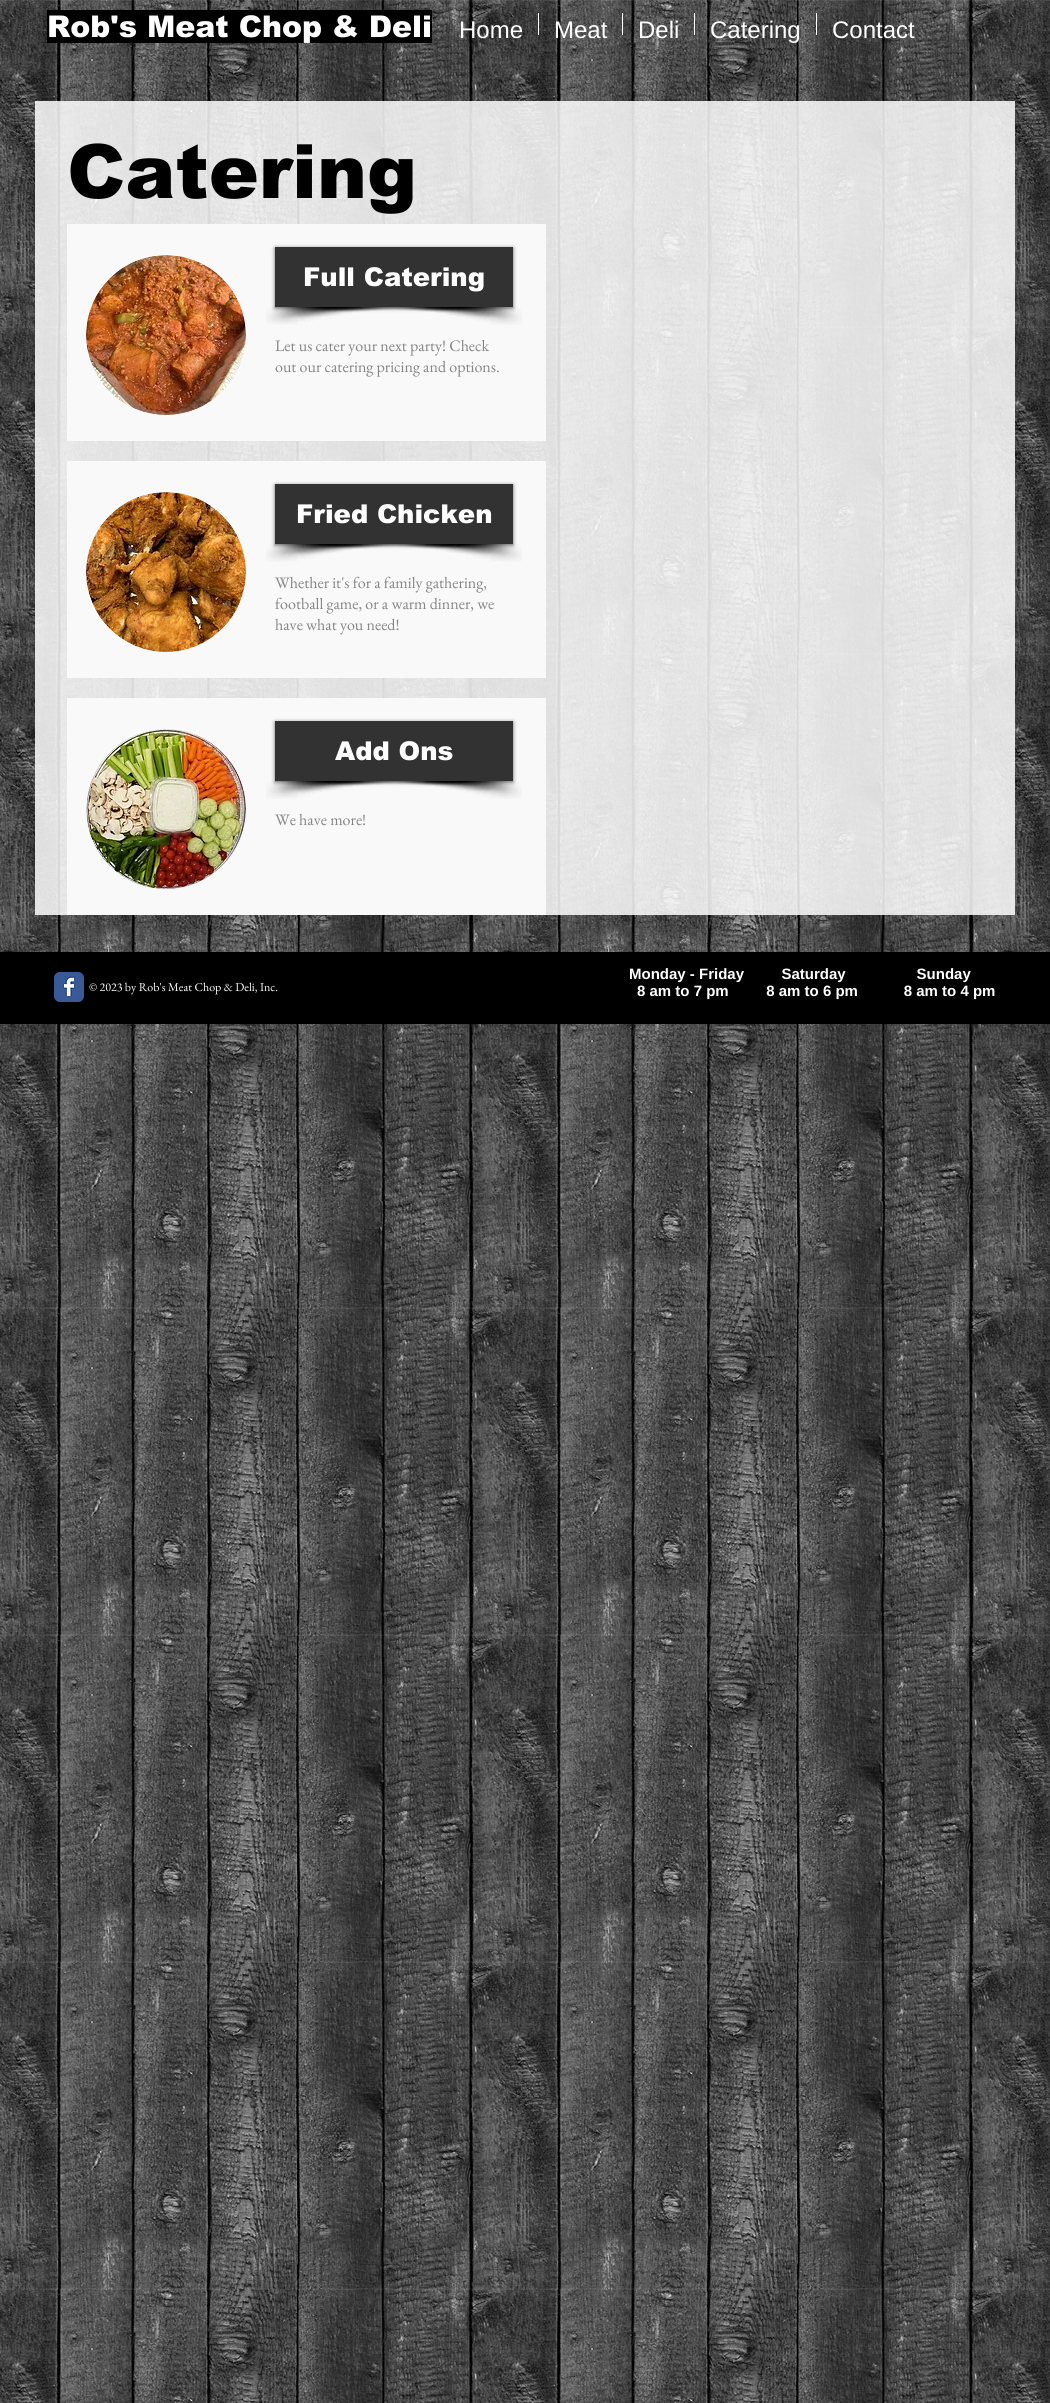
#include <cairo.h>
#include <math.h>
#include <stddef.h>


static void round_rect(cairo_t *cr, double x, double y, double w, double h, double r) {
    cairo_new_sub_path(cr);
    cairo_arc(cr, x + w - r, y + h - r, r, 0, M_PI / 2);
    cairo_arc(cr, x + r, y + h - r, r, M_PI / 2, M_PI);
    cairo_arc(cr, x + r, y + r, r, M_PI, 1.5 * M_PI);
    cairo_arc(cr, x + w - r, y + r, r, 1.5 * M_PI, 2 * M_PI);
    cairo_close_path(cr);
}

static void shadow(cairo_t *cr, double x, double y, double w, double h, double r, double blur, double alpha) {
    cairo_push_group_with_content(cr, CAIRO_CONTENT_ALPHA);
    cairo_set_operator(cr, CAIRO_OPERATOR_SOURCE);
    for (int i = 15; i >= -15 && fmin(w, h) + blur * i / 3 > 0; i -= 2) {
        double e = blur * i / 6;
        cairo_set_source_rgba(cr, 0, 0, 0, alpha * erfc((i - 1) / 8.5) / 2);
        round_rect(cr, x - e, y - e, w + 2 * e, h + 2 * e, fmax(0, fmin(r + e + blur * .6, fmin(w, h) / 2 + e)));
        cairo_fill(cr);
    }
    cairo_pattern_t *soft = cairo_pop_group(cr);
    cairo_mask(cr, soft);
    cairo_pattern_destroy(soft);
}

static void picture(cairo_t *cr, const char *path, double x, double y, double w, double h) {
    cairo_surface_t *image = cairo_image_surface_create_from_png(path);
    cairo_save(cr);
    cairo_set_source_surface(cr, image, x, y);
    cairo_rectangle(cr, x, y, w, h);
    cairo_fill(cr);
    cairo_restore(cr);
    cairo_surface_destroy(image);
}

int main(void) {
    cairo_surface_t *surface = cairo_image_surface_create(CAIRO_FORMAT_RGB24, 1050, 2403);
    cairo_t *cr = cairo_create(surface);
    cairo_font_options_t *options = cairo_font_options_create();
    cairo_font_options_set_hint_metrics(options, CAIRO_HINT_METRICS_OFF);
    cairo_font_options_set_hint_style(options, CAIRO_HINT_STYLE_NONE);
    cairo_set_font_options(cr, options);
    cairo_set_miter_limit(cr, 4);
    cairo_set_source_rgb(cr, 1, 1, 1);
    cairo_paint(cr);
    picture(cr, "img1.png", 0, 0, 1050, 2403);
    cairo_set_source_rgb(cr, 0, 0, 0);
    cairo_rectangle(cr, 47, 10, 385, 33);
    cairo_fill(cr);
    cairo_select_font_face(cr, "arial Black", CAIRO_FONT_SLANT_NORMAL, CAIRO_FONT_WEIGHT_NORMAL);
    cairo_set_font_size(cr, 30);
    cairo_set_source_rgb(cr, 1, 1, 1);
    cairo_move_to(cr, 47, 37);
    cairo_show_text(cr, "Rob's Meat Chop & Deli");
    cairo_select_font_face(cr, "Liberation Sans", CAIRO_FONT_SLANT_NORMAL, CAIRO_FONT_WEIGHT_NORMAL);
    cairo_set_font_size(cr, 24);
    cairo_move_to(cr, 459, 38);
    cairo_show_text(cr, "Home");
    cairo_rectangle(cr, 538, 13, 1, 22);
    cairo_fill(cr);
    cairo_move_to(cr, 554, 38);
    cairo_show_text(cr, "Meat");
    cairo_rectangle(cr, 622, 13, 1, 22);
    cairo_fill(cr);
    cairo_move_to(cr, 638, 38);
    cairo_show_text(cr, "Deli");
    cairo_rectangle(cr, 694, 13, 1, 22);
    cairo_fill(cr);
    cairo_move_to(cr, 710, 38);
    cairo_show_text(cr, "Catering");
    cairo_rectangle(cr, 816, 13, 1, 22);
    cairo_fill(cr);
    cairo_move_to(cr, 832, 38);
    cairo_show_text(cr, "Contact");
    cairo_set_source_rgba(cr, 1, 1, 1, 0.85);
    cairo_rectangle(cr, 35, 101, 980, 814);
    cairo_fill(cr);
    cairo_select_font_face(cr, "arial Black", CAIRO_FONT_SLANT_NORMAL, CAIRO_FONT_WEIGHT_NORMAL);
    cairo_set_font_size(cr, 75);
    cairo_set_source_rgb(cr, 0, 0, 0);
    cairo_move_to(cr, 67, 198);
    cairo_show_text(cr, "Catering");
    cairo_set_source_rgb(cr, 0.976, 0.976, 0.976);
    cairo_rectangle(cr, 67, 224, 479, 217);
    cairo_fill(cr);
    picture(cr, "img2.png", 86, 255, 160, 160);
    picture(cr, "img3.png", 266, 307, 154, 18);
    picture(cr, "img4.png", 376, 307, 146, 18);
    cairo_set_source_rgb(cr, 0, 0, 0);
    shadow(cr, 275, 248, 238, 60, 0, 2, 0.6);
    cairo_set_source_rgb(cr, 0.196, 0.196, 0.196);
    cairo_rectangle(cr, 275, 247, 238, 60);
    cairo_fill(cr);
    cairo_set_font_size(cr, 26);
    cairo_set_source_rgb(cr, 1, 1, 1);
    cairo_move_to(cr, 303, 286);
    cairo_show_text(cr, "Full Catering");
    cairo_select_font_face(cr, "EB Garamond", CAIRO_FONT_SLANT_NORMAL, CAIRO_FONT_WEIGHT_NORMAL);
    cairo_set_font_size(cr, 16);
    cairo_set_source_rgb(cr, 0.522, 0.522, 0.522);
    cairo_move_to(cr, 275, 351);
    cairo_show_text(cr, "Let us cater your next party! Check");
    cairo_move_to(cr, 275, 372);
    cairo_show_text(cr, "out our catering pricing and options.");
    cairo_set_source_rgb(cr, 0.976, 0.976, 0.976);
    cairo_rectangle(cr, 67, 461, 479, 217);
    cairo_fill(cr);
    picture(cr, "img5.png", 86, 492, 160, 160);
    picture(cr, "img3.png", 266, 544, 154, 18);
    picture(cr, "img4.png", 376, 544, 146, 18);
    cairo_set_source_rgb(cr, 0, 0, 0);
    shadow(cr, 275, 485, 238, 60, 0, 2, 0.6);
    cairo_set_source_rgb(cr, 0.196, 0.196, 0.196);
    cairo_rectangle(cr, 275, 484, 238, 60);
    cairo_fill(cr);
    cairo_select_font_face(cr, "arial Black", CAIRO_FONT_SLANT_NORMAL, CAIRO_FONT_WEIGHT_NORMAL);
    cairo_set_font_size(cr, 26);
    cairo_set_source_rgb(cr, 1, 1, 1);
    cairo_move_to(cr, 296, 523);
    cairo_show_text(cr, "Fried Chicken");
    cairo_select_font_face(cr, "EB Garamond", CAIRO_FONT_SLANT_NORMAL, CAIRO_FONT_WEIGHT_NORMAL);
    cairo_set_font_size(cr, 16);
    cairo_set_source_rgb(cr, 0.522, 0.522, 0.522);
    cairo_move_to(cr, 275, 588);
    cairo_show_text(cr, "Whether it's for a family gathering,");
    cairo_move_to(cr, 275, 609);
    cairo_show_text(cr, "football game, or a warm dinner, we");
    cairo_move_to(cr, 275, 630);
    cairo_show_text(cr, "have what you need!");
    cairo_set_source_rgb(cr, 0.976, 0.976, 0.976);
    cairo_rectangle(cr, 67, 698, 479, 217);
    cairo_fill(cr);
    picture(cr, "img6.png", 86, 729, 160, 160);
    picture(cr, "img3.png", 266, 781, 154, 18);
    picture(cr, "img4.png", 376, 781, 146, 18);
    cairo_set_source_rgb(cr, 0, 0, 0);
    shadow(cr, 275, 722, 238, 60, 0, 2, 0.6);
    cairo_set_source_rgb(cr, 0.196, 0.196, 0.196);
    cairo_rectangle(cr, 275, 721, 238, 60);
    cairo_fill(cr);
    cairo_select_font_face(cr, "arial Black", CAIRO_FONT_SLANT_NORMAL, CAIRO_FONT_WEIGHT_NORMAL);
    cairo_set_font_size(cr, 26);
    cairo_set_source_rgb(cr, 1, 1, 1);
    cairo_move_to(cr, 335, 760);
    cairo_show_text(cr, "Add Ons");
    cairo_select_font_face(cr, "EB Garamond", CAIRO_FONT_SLANT_NORMAL, CAIRO_FONT_WEIGHT_NORMAL);
    cairo_set_font_size(cr, 16);
    cairo_set_source_rgb(cr, 0.522, 0.522, 0.522);
    cairo_move_to(cr, 275, 825);
    cairo_show_text(cr, "We have more!");
    cairo_set_source_rgb(cr, 0, 0, 0);
    cairo_rectangle(cr, 0, 952, 1050, 72);
    cairo_fill(cr);
    picture(cr, "img7.png", 54, 972, 30, 30);
    cairo_set_font_size(cr, 12);
    cairo_set_source_rgb(cr, 1, 1, 1);
    cairo_move_to(cr, 89, 991);
    cairo_show_text(cr, "© 2023 by Rob's Meat Chop & Deli, Inc.");
    cairo_select_font_face(cr, "Liberation Sans", CAIRO_FONT_SLANT_NORMAL, CAIRO_FONT_WEIGHT_BOLD);
    cairo_set_font_size(cr, 15);
    cairo_move_to(cr, 629, 979);
    cairo_show_text(cr, "Monday - Friday         Saturday                 Sunday");
    cairo_move_to(cr, 637, 996);
    cairo_show_text(cr, "8 am to 7 pm         8 am to 6 pm           8 am to 4 pm");
    cairo_surface_write_to_png(surface, "page.png");
    cairo_font_options_destroy(options);
    cairo_destroy(cr);
    cairo_surface_destroy(surface);
    return 0;
}
